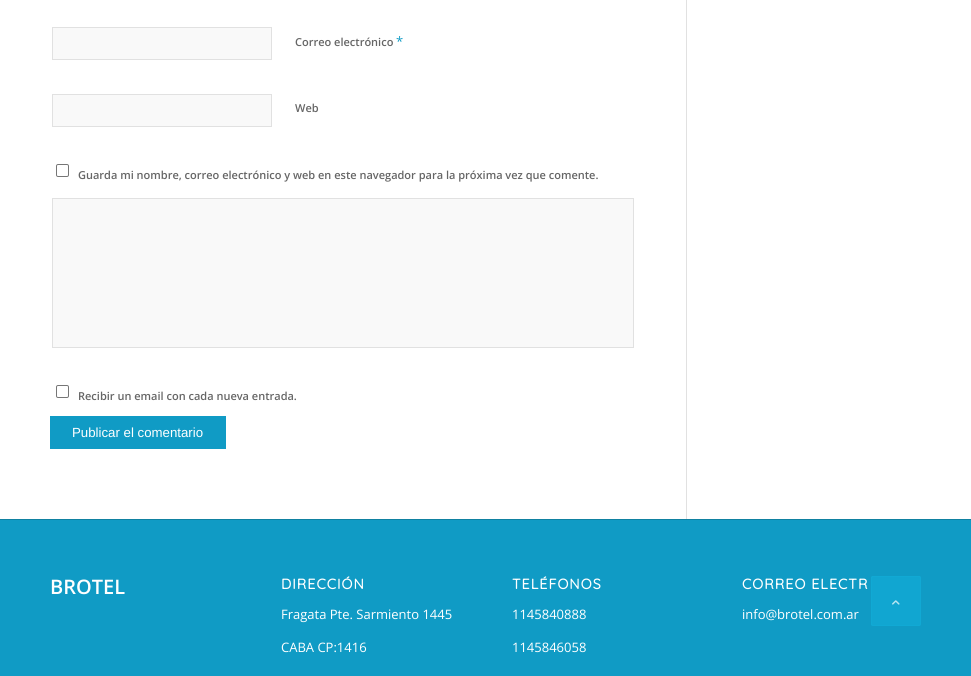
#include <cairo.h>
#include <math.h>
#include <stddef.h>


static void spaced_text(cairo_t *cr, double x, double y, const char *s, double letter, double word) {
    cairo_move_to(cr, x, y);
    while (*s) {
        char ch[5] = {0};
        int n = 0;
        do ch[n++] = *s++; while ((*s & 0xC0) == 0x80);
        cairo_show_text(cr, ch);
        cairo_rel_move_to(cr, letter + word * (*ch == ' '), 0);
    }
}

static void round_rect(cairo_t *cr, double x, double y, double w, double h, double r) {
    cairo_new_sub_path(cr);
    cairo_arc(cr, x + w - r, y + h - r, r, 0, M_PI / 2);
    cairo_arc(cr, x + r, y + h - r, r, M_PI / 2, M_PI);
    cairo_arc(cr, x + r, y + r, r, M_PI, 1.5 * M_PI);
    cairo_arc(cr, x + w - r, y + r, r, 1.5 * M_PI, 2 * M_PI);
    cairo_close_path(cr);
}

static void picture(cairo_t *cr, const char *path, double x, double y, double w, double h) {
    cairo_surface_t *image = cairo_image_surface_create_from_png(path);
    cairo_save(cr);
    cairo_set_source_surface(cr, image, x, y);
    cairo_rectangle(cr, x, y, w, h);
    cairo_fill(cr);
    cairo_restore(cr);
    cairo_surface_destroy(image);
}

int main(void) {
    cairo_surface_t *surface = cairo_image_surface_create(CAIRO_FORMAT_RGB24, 971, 676);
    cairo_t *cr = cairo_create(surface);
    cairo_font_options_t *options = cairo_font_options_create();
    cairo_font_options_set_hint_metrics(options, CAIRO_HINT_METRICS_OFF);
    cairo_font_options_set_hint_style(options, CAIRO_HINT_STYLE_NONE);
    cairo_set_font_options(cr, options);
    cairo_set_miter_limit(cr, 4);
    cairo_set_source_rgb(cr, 1, 1, 1);
    cairo_paint(cr);
    cairo_set_source_rgb(cr, 0.882, 0.882, 0.882);
    cairo_rectangle(cr, 686, 0, 1, 519);
    cairo_fill(cr);
    cairo_set_source_rgb(cr, 0.973, 0.973, 0.973);
    cairo_rectangle(cr, 52.5, 27.5, 219, 32);
    cairo_fill_preserve(cr);
    cairo_set_source_rgb(cr, 0.882, 0.882, 0.882);
    cairo_set_line_width(cr, 1);
    cairo_stroke(cr);
    cairo_select_font_face(cr, "Open Sans SemiBold", CAIRO_FONT_SLANT_NORMAL, CAIRO_FONT_WEIGHT_NORMAL);
    cairo_set_font_size(cr, 11);
    cairo_set_source_rgb(cr, 0.4, 0.4, 0.4);
    cairo_move_to(cr, 295, 46);
    cairo_show_text(cr, "Correo electrónico");
    cairo_select_font_face(cr, "Open Sans", CAIRO_FONT_SLANT_NORMAL, CAIRO_FONT_WEIGHT_NORMAL);
    cairo_set_font_size(cr, 13);
    cairo_set_source_rgb(cr, 0.063, 0.608, 0.773);
    cairo_move_to(cr, 396, 46);
    cairo_show_text(cr, "*");
    cairo_set_source_rgb(cr, 0.973, 0.973, 0.973);
    cairo_rectangle(cr, 52.5, 94.5, 219, 32);
    cairo_fill_preserve(cr);
    cairo_set_source_rgb(cr, 0.882, 0.882, 0.882);
    cairo_stroke(cr);
    cairo_select_font_face(cr, "Open Sans SemiBold", CAIRO_FONT_SLANT_NORMAL, CAIRO_FONT_WEIGHT_NORMAL);
    cairo_set_font_size(cr, 11);
    cairo_set_source_rgb(cr, 0.4, 0.4, 0.4);
    cairo_move_to(cr, 295, 112);
    cairo_show_text(cr, "Web");
    round_rect(cr, 56.5, 164.5, 12, 12, 1.5);
    cairo_set_source_rgb(cr, 0.463, 0.463, 0.463);
    cairo_stroke(cr);
    cairo_set_source_rgb(cr, 0.4, 0.4, 0.4);
    cairo_move_to(cr, 78, 179);
    cairo_show_text(cr, "Guarda mi nombre, correo electrónico y web en este navegador para la próxima vez que comente.");
    cairo_set_source_rgb(cr, 0.973, 0.973, 0.973);
    cairo_rectangle(cr, 52.5, 198.5, 581, 149);
    cairo_fill_preserve(cr);
    cairo_set_source_rgb(cr, 0.882, 0.882, 0.882);
    cairo_stroke(cr);
    round_rect(cr, 56.5, 385.5, 12, 12, 1.5);
    cairo_set_source_rgb(cr, 0.463, 0.463, 0.463);
    cairo_stroke(cr);
    cairo_set_source_rgb(cr, 0.4, 0.4, 0.4);
    cairo_move_to(cr, 78, 400);
    cairo_show_text(cr, "Recibir un email con cada nueva entrada.");
    cairo_set_source_rgb(cr, 0.063, 0.608, 0.773);
    cairo_rectangle(cr, 50, 416, 176, 33);
    cairo_fill(cr);
    cairo_select_font_face(cr, "Liberation Sans", CAIRO_FONT_SLANT_NORMAL, CAIRO_FONT_WEIGHT_NORMAL);
    cairo_set_font_size(cr, 13.25);
    cairo_set_source_rgb(cr, 1, 1, 1);
    cairo_move_to(cr, 72, 437);
    cairo_show_text(cr, "Publicar el comentario");
    cairo_set_source_rgb(cr, 0.063, 0.608, 0.773);
    cairo_rectangle(cr, 0, 520, 971, 156);
    cairo_fill(cr);
    cairo_set_source_rgb(cr, 0.059, 0.506, 0.631);
    cairo_rectangle(cr, 0, 519, 971, 1);
    cairo_fill(cr);
    cairo_select_font_face(cr, "Open Sans SemiBold", CAIRO_FONT_SLANT_NORMAL, CAIRO_FONT_WEIGHT_NORMAL);
    cairo_set_font_size(cr, 20);
    cairo_set_source_rgb(cr, 1, 1, 1);
    cairo_move_to(cr, 50, 594);
    cairo_show_text(cr, "BROTEL");
    cairo_select_font_face(cr, "Quicksand", CAIRO_FONT_SLANT_NORMAL, CAIRO_FONT_WEIGHT_BOLD);
    cairo_set_font_size(cr, 14.25);
    spaced_text(cr, 281, 589, "DIRECCIÓN", 1, 0);
    cairo_select_font_face(cr, "Open Sans", CAIRO_FONT_SLANT_NORMAL, CAIRO_FONT_WEIGHT_NORMAL);
    cairo_set_font_size(cr, 13);
    cairo_move_to(cr, 281, 619);
    cairo_show_text(cr, "Fragata Pte. Sarmiento 1445");
    cairo_move_to(cr, 281, 652);
    cairo_show_text(cr, "CABA CP:1416");
    cairo_select_font_face(cr, "Quicksand", CAIRO_FONT_SLANT_NORMAL, CAIRO_FONT_WEIGHT_BOLD);
    cairo_set_font_size(cr, 14.25);
    spaced_text(cr, 512, 589, "TELÉFONOS", 1, 0);
    cairo_select_font_face(cr, "Open Sans", CAIRO_FONT_SLANT_NORMAL, CAIRO_FONT_WEIGHT_NORMAL);
    cairo_set_font_size(cr, 13);
    cairo_move_to(cr, 512, 619);
    cairo_show_text(cr, "1145840888");
    cairo_move_to(cr, 512, 652);
    cairo_show_text(cr, "1145846058");
    cairo_select_font_face(cr, "Quicksand", CAIRO_FONT_SLANT_NORMAL, CAIRO_FONT_WEIGHT_BOLD);
    cairo_set_font_size(cr, 14.25);
    spaced_text(cr, 742, 589, "CORREO ELECTR", 1, 0);
    cairo_select_font_face(cr, "Open Sans", CAIRO_FONT_SLANT_NORMAL, CAIRO_FONT_WEIGHT_NORMAL);
    cairo_set_font_size(cr, 13);
    cairo_move_to(cr, 742, 619);
    cairo_show_text(cr, "info@brotel.com.ar");
    cairo_set_source_rgba(cr, 0.067, 0.671, 0.839, 0.7);
    round_rect(cr, 871, 576, 50, 50, 2);
    cairo_fill(cr);
    round_rect(cr, 871.5, 576.5, 49, 49, 1.5);
    cairo_stroke(cr);
    picture(cr, "img1.png", 892, 600, 8, 5);
    cairo_surface_write_to_png(surface, "page.png");
    cairo_font_options_destroy(options);
    cairo_destroy(cr);
    cairo_surface_destroy(surface);
    return 0;
}
